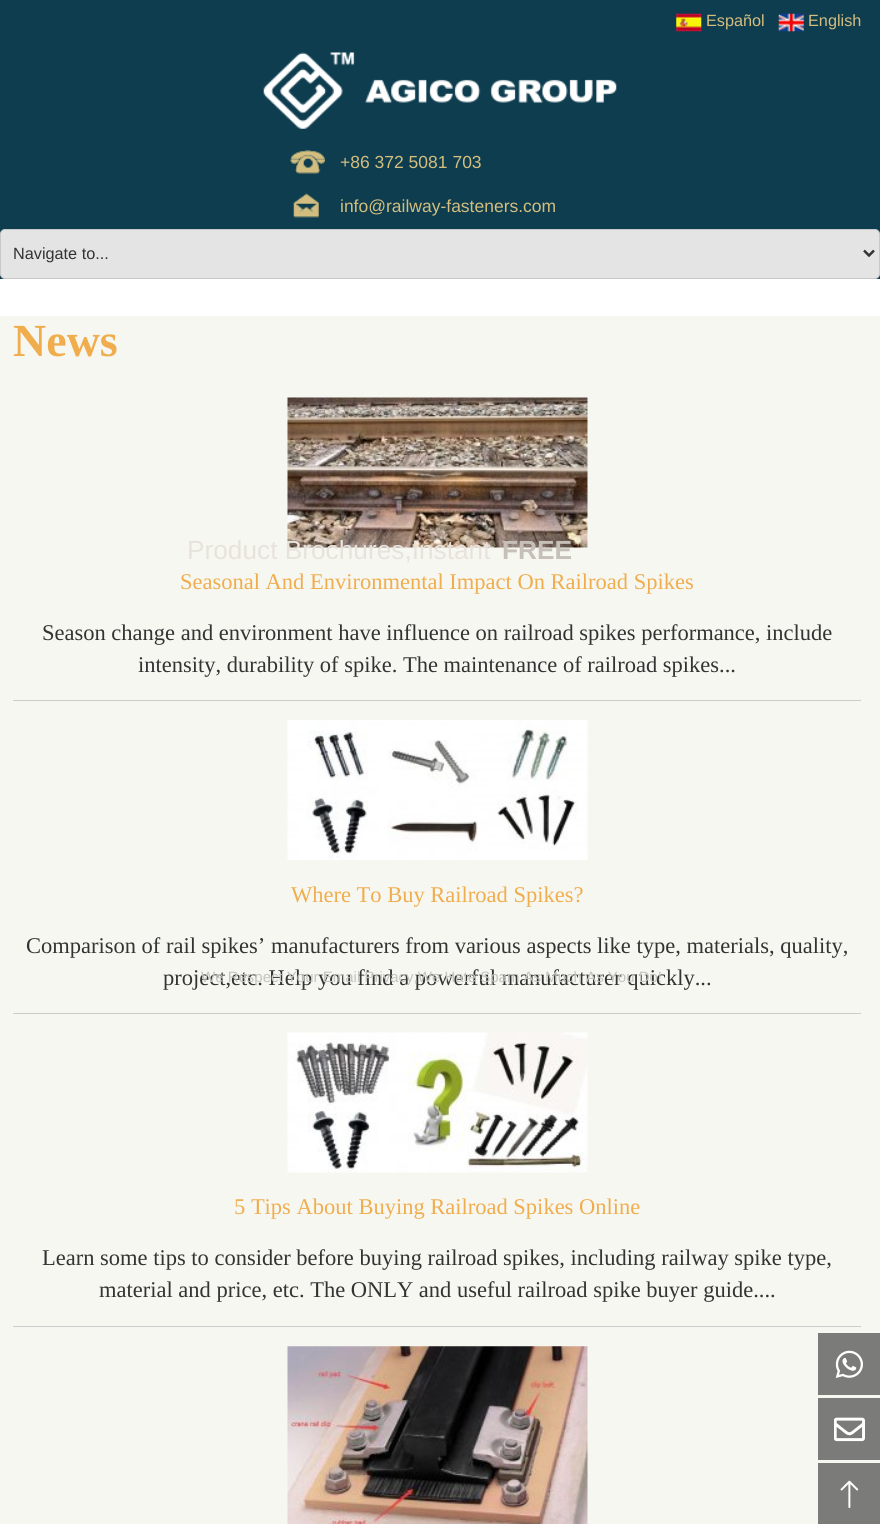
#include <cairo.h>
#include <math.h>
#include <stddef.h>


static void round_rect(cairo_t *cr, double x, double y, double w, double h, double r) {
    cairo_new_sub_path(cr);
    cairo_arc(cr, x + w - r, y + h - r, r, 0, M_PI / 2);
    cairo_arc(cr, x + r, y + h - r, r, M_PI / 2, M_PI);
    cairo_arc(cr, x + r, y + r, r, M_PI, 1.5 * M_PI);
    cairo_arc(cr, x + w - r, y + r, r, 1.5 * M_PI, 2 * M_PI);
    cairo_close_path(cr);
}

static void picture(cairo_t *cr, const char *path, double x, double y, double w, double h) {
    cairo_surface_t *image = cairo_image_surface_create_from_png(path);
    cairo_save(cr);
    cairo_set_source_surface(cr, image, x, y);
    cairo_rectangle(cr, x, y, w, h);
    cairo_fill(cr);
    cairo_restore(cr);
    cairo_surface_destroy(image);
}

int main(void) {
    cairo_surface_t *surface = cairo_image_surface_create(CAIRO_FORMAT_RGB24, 880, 1524);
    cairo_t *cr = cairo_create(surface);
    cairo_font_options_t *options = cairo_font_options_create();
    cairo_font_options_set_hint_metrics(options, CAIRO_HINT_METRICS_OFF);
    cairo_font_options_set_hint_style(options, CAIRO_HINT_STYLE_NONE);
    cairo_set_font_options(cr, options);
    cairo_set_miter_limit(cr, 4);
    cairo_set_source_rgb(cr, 1, 1, 1);
    cairo_paint(cr);
    cairo_set_source_rgb(cr, 0.055, 0.239, 0.31);
    cairo_rectangle(cr, 0, 0, 880, 279);
    cairo_fill(cr);
    picture(cr, "img1.png", 676, 13, 26, 19);
    cairo_select_font_face(cr, "Liberation Sans", CAIRO_FONT_SLANT_NORMAL, CAIRO_FONT_WEIGHT_NORMAL);
    cairo_set_font_size(cr, 16.25);
    cairo_set_source_rgb(cr, 0.827, 0.745, 0.498);
    cairo_move_to(cr, 706, 26);
    cairo_show_text(cr, "Español");
    picture(cr, "img2.png", 778, 13, 26, 19);
    cairo_move_to(cr, 808, 26);
    cairo_show_text(cr, "English");
    picture(cr, "img3.png", 263, 52, 354, 77);
    picture(cr, "img4.png", 290, 150, 35, 68);
    cairo_set_font_size(cr, 17.5);
    cairo_move_to(cr, 340, 168);
    cairo_show_text(cr, "+86 372 5081 703");
    cairo_move_to(cr, 340, 212);
    cairo_show_text(cr, "info@railway-fasteners.com");
    cairo_set_source_rgb(cr, 0.894, 0.894, 0.894);
    round_rect(cr, 0.5, 229.5, 879, 49, 4.5);
    cairo_fill_preserve(cr);
    cairo_set_source_rgb(cr, 0.784, 0.784, 0.784);
    cairo_set_line_width(cr, 1);
    cairo_stroke(cr);
    cairo_new_path(cr);
    cairo_move_to(cr, 864, 250.5);
    cairo_line_to(cr, 869, 255.5);
    cairo_line_to(cr, 874, 250.5);
    cairo_set_source_rgb(cr, 0.2, 0.2, 0.2);
    cairo_set_line_width(cr, 2.5);
    cairo_stroke(cr);
    cairo_set_font_size(cr, 16.25);
    cairo_move_to(cr, 13, 259);
    cairo_show_text(cr, "Navigate to...");
    cairo_set_source_rgb(cr, 0.965, 0.965, 0.945);
    cairo_rectangle(cr, 0, 316, 880, 1208);
    cairo_fill(cr);
    cairo_select_font_face(cr, "Liberation Serif", CAIRO_FONT_SLANT_NORMAL, CAIRO_FONT_WEIGHT_BOLD);
    cairo_set_font_size(cr, 46);
    cairo_set_source_rgb(cr, 0.941, 0.678, 0.306);
    cairo_move_to(cr, 13, 356);
    cairo_show_text(cr, "News");
    cairo_set_source_rgb(cr, 0.8, 0.8, 0.8);
    cairo_rectangle(cr, 13, 700, 848, 1);
    cairo_fill(cr);
    picture(cr, "img5.png", 287, 397, 301, 151);
    cairo_select_font_face(cr, "Liberation Serif", CAIRO_FONT_SLANT_NORMAL, CAIRO_FONT_WEIGHT_NORMAL);
    cairo_set_font_size(cr, 22.5);
    cairo_set_source_rgb(cr, 0.941, 0.678, 0.306);
    cairo_move_to(cr, 180, 589);
    cairo_show_text(cr, "Seasonal And Environmental Impact On Railroad Spikes");
    cairo_set_source_rgb(cr, 0.2, 0.2, 0.2);
    cairo_move_to(cr, 42, 640);
    cairo_show_text(cr, "Season change and environment have influence on railroad spikes performance, include");
    cairo_move_to(cr, 138, 672);
    cairo_show_text(cr, "intensity, durability of spike. The maintenance of railroad spikes...");
    cairo_set_source_rgb(cr, 0.8, 0.8, 0.8);
    cairo_rectangle(cr, 13, 1013, 848, 1);
    cairo_fill(cr);
    picture(cr, "img6.png", 287, 720, 301, 140);
    cairo_set_source_rgb(cr, 0.941, 0.678, 0.306);
    cairo_move_to(cr, 291, 902);
    cairo_show_text(cr, "Where To Buy Railroad Spikes?");
    cairo_set_source_rgb(cr, 0.2, 0.2, 0.2);
    cairo_move_to(cr, 26, 953);
    cairo_show_text(cr, "Comparison of rail spikes’ manufacturers from various aspects like type, materials, quality,");
    cairo_move_to(cr, 163, 985);
    cairo_show_text(cr, "project,etc. Help you find a powerful manufacturer quickly...");
    cairo_set_source_rgb(cr, 0.8, 0.8, 0.8);
    cairo_rectangle(cr, 13, 1326, 848, 1);
    cairo_fill(cr);
    picture(cr, "img7.png", 287, 1032, 301, 141);
    cairo_set_source_rgb(cr, 0.941, 0.678, 0.306);
    cairo_move_to(cr, 234, 1214);
    cairo_show_text(cr, "5 Tips About Buying Railroad Spikes Online");
    cairo_set_source_rgb(cr, 0.2, 0.2, 0.2);
    cairo_move_to(cr, 42, 1265);
    cairo_show_text(cr, "Learn some tips to consider before buying railroad spikes, including railway spike type,");
    cairo_move_to(cr, 99, 1297);
    cairo_show_text(cr, "material and price, etc. The ONLY and useful railroad spike buyer guide....");
    picture(cr, "img8.png", 287, 1346, 301, 178);
    cairo_select_font_face(cr, "Liberation Sans", CAIRO_FONT_SLANT_NORMAL, CAIRO_FONT_WEIGHT_NORMAL);
    cairo_set_font_size(cr, 26.25);
    cairo_set_source_rgb(cr, 0.906, 0.89, 0.863);
    cairo_move_to(cr, 187, 559);
    cairo_show_text(cr, "Product Brochures,Instant");
    cairo_select_font_face(cr, "Liberation Sans", CAIRO_FONT_SLANT_NORMAL, CAIRO_FONT_WEIGHT_BOLD);
    cairo_set_source_rgb(cr, 0.776, 0.753, 0.725);
    cairo_move_to(cr, 502, 559);
    cairo_show_text(cr, "FREE");
    cairo_select_font_face(cr, "Liberation Sans", CAIRO_FONT_SLANT_NORMAL, CAIRO_FONT_WEIGHT_NORMAL);
    cairo_set_font_size(cr, 15);
    cairo_set_source_rgb(cr, 0.769, 0.769, 0.753);
    cairo_move_to(cr, 201, 982);
    cairo_show_text(cr, "We Respect Your Email Privacy,We Hate Spam As Much As You Do!");
    cairo_set_source_rgb(cr, 0.482, 0.482, 0.475);
    cairo_rectangle(cr, 818, 1333, 62, 62);
    cairo_fill(cr);
    picture(cr, "img9.png", 835, 1350, 28, 28);
    cairo_rectangle(cr, 818, 1398, 62, 62);
    cairo_fill(cr);
    picture(cr, "img10.png", 834, 1417, 31, 25);
    cairo_rectangle(cr, 818, 1463, 62, 61);
    cairo_fill(cr);
    picture(cr, "img11.png", 840, 1480, 19, 28);
    cairo_surface_write_to_png(surface, "page.png");
    cairo_font_options_destroy(options);
    cairo_destroy(cr);
    cairo_surface_destroy(surface);
    return 0;
}
